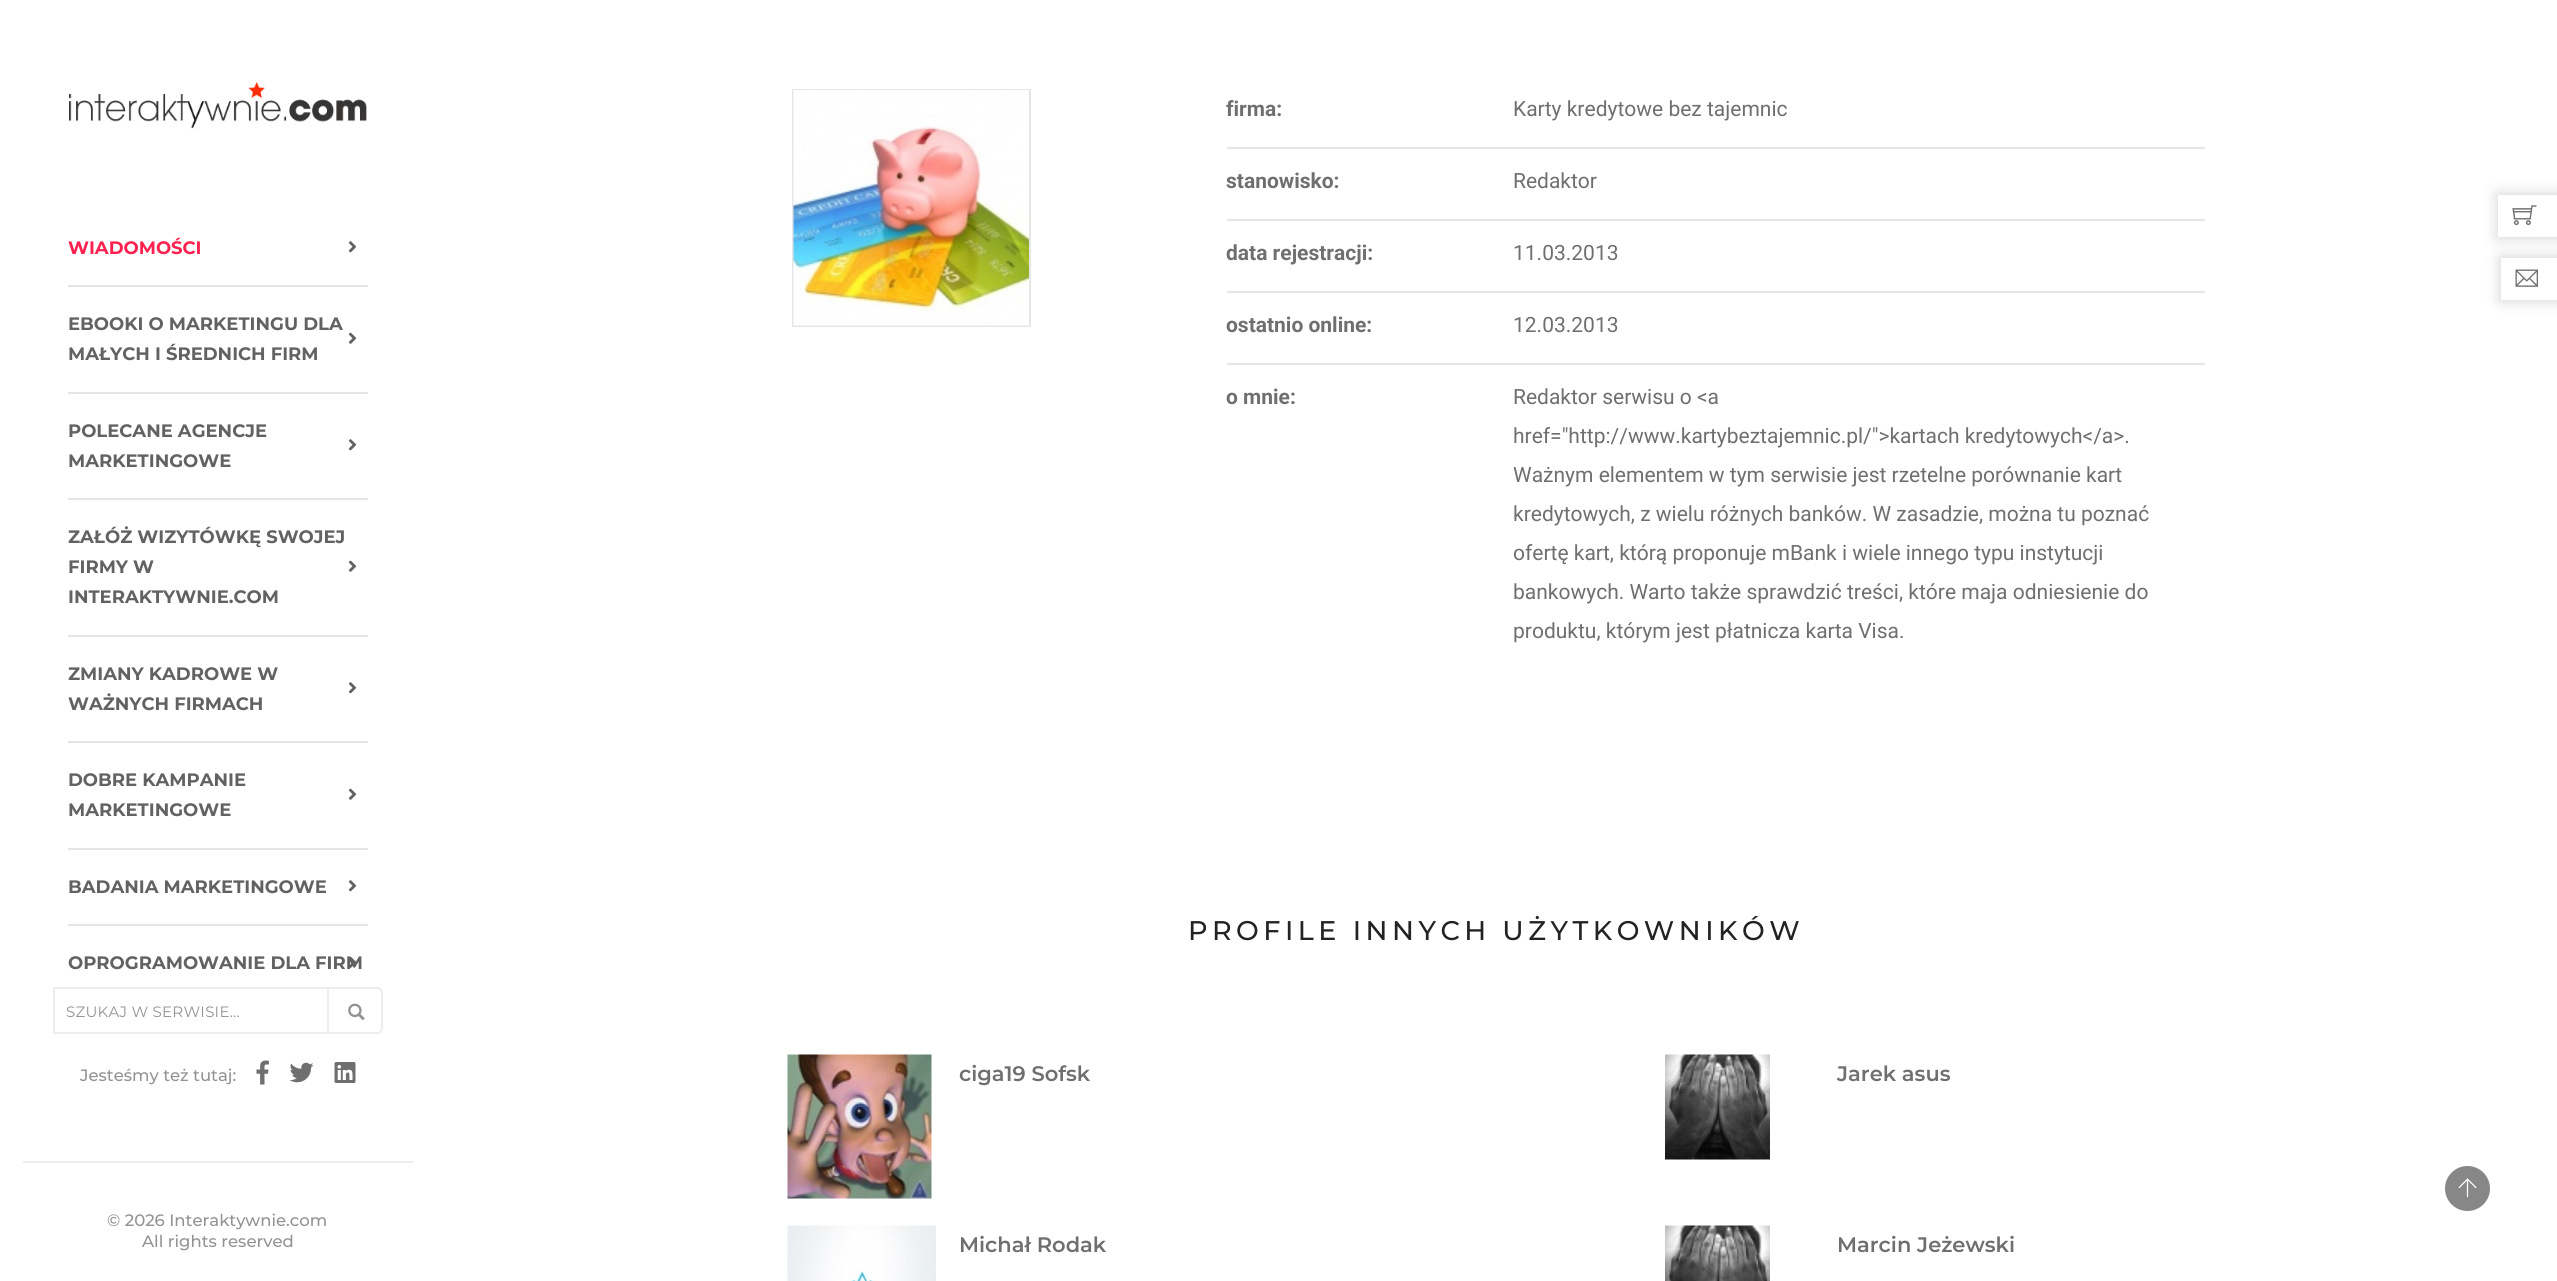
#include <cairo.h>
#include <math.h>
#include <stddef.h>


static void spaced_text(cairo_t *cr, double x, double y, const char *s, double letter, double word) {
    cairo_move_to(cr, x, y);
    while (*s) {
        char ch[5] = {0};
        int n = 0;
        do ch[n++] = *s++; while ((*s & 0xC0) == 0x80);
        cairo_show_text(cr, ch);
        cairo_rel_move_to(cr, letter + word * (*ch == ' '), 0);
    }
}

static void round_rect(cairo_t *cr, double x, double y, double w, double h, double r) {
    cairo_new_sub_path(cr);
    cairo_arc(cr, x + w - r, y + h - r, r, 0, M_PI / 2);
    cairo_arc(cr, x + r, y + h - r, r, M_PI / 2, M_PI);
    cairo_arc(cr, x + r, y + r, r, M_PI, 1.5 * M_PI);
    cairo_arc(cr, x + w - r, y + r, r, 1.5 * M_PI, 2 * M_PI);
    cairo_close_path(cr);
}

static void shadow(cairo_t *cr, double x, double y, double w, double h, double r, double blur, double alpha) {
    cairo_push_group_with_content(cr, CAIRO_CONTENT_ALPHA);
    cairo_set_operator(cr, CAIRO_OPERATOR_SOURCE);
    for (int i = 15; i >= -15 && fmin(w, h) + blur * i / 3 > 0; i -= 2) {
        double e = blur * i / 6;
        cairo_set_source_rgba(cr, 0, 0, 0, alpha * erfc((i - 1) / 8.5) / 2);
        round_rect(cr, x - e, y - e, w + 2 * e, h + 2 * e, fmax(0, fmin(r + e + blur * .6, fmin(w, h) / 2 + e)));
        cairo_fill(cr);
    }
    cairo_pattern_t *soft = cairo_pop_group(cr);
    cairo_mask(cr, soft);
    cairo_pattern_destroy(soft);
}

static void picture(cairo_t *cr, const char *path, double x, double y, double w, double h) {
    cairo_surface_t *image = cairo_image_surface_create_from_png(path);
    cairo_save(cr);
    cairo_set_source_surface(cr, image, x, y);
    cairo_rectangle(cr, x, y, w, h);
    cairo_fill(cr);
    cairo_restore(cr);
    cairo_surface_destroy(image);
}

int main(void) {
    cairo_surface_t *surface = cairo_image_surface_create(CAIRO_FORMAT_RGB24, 2557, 1281);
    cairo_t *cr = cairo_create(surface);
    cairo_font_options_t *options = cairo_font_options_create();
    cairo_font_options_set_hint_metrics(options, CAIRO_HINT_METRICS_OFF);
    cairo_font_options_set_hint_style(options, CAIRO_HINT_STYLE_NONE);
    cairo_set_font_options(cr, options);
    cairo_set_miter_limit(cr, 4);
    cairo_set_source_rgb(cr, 1, 1, 1);
    cairo_paint(cr);
    cairo_rectangle(cr, 793, 90, 237, 236);
    cairo_set_source_rgb(cr, 0.902, 0.902, 0.902);
    cairo_stroke(cr);
    picture(cr, "img1.png", 793, 90, 236, 236);
    cairo_rectangle(cr, 1227, 147, 978, 2);
    cairo_fill(cr);
    cairo_select_font_face(cr, "Roboto", CAIRO_FONT_SLANT_NORMAL, CAIRO_FONT_WEIGHT_BOLD);
    cairo_set_font_size(cr, 21);
    cairo_set_source_rgb(cr, 0.435, 0.435, 0.435);
    cairo_move_to(cr, 1226, 116);
    cairo_show_text(cr, "firma:");
    cairo_select_font_face(cr, "Roboto", CAIRO_FONT_SLANT_NORMAL, CAIRO_FONT_WEIGHT_NORMAL);
    cairo_move_to(cr, 1513, 116);
    cairo_show_text(cr, "Karty kredytowe bez tajemnic");
    cairo_set_source_rgb(cr, 0.902, 0.902, 0.902);
    cairo_rectangle(cr, 1227, 219, 978, 2);
    cairo_fill(cr);
    cairo_select_font_face(cr, "Roboto", CAIRO_FONT_SLANT_NORMAL, CAIRO_FONT_WEIGHT_BOLD);
    cairo_set_source_rgb(cr, 0.435, 0.435, 0.435);
    cairo_move_to(cr, 1226, 188);
    cairo_show_text(cr, "stanowisko:");
    cairo_select_font_face(cr, "Roboto", CAIRO_FONT_SLANT_NORMAL, CAIRO_FONT_WEIGHT_NORMAL);
    cairo_move_to(cr, 1513, 188);
    cairo_show_text(cr, "Redaktor");
    cairo_set_source_rgb(cr, 0.902, 0.902, 0.902);
    cairo_rectangle(cr, 1227, 291, 978, 2);
    cairo_fill(cr);
    cairo_select_font_face(cr, "Roboto", CAIRO_FONT_SLANT_NORMAL, CAIRO_FONT_WEIGHT_BOLD);
    cairo_set_source_rgb(cr, 0.435, 0.435, 0.435);
    cairo_move_to(cr, 1226, 260);
    cairo_show_text(cr, "data rejestracji:");
    cairo_select_font_face(cr, "Roboto", CAIRO_FONT_SLANT_NORMAL, CAIRO_FONT_WEIGHT_NORMAL);
    cairo_move_to(cr, 1513, 260);
    cairo_show_text(cr, "11.03.2013");
    cairo_set_source_rgb(cr, 0.902, 0.902, 0.902);
    cairo_rectangle(cr, 1227, 363, 978, 2);
    cairo_fill(cr);
    cairo_select_font_face(cr, "Roboto", CAIRO_FONT_SLANT_NORMAL, CAIRO_FONT_WEIGHT_BOLD);
    cairo_set_source_rgb(cr, 0.435, 0.435, 0.435);
    cairo_move_to(cr, 1226, 332);
    cairo_show_text(cr, "ostatnio online:");
    cairo_select_font_face(cr, "Roboto", CAIRO_FONT_SLANT_NORMAL, CAIRO_FONT_WEIGHT_NORMAL);
    cairo_move_to(cr, 1513, 332);
    cairo_show_text(cr, "12.03.2013");
    cairo_select_font_face(cr, "Roboto", CAIRO_FONT_SLANT_NORMAL, CAIRO_FONT_WEIGHT_BOLD);
    cairo_move_to(cr, 1226, 404);
    cairo_show_text(cr, "o mnie:");
    cairo_select_font_face(cr, "Roboto", CAIRO_FONT_SLANT_NORMAL, CAIRO_FONT_WEIGHT_NORMAL);
    cairo_move_to(cr, 1513, 404);
    cairo_show_text(cr, "Redaktor serwisu o <a");
    cairo_move_to(cr, 1513, 443);
    cairo_show_text(cr, "href=\"http://www.kartybeztajemnic.pl/\">kartach kredytowych</a>.");
    cairo_move_to(cr, 1513, 482);
    cairo_show_text(cr, "Ważnym elementem w tym serwisie jest rzetelne porównanie kart");
    cairo_move_to(cr, 1513, 521);
    cairo_show_text(cr, "kredytowych, z wielu różnych banków. W zasadzie, można tu poznać");
    cairo_move_to(cr, 1513, 560);
    cairo_show_text(cr, "ofertę kart, którą proponuje mBank i wiele innego typu instytucji");
    cairo_move_to(cr, 1513, 599);
    cairo_show_text(cr, "bankowych. Warto także sprawdzić treści, które maja odniesienie do");
    cairo_move_to(cr, 1513, 638);
    cairo_show_text(cr, "produktu, którym jest płatnicza karta Visa.");
    cairo_select_font_face(cr, "Montserrat Medium", CAIRO_FONT_SLANT_NORMAL, CAIRO_FONT_WEIGHT_NORMAL);
    cairo_set_font_size(cr, 27);
    cairo_set_source_rgb(cr, 0.137, 0.137, 0.137);
    spaced_text(cr, 1188, 940, "PROFILE INNYCH UŻYTKOWNIKÓW", 4.5, 0);
    picture(cr, "img2.png", 787, 1054, 145, 145);
    cairo_select_font_face(cr, "Montserrat SemiBold", CAIRO_FONT_SLANT_NORMAL, CAIRO_FONT_WEIGHT_NORMAL);
    cairo_set_font_size(cr, 21);
    cairo_set_source_rgb(cr, 0.435, 0.435, 0.435);
    cairo_move_to(cr, 959, 1081);
    cairo_show_text(cr, "ciga19 Sofsk");
    picture(cr, "img3.png", 1665, 1054, 105, 106);
    cairo_move_to(cr, 1837, 1081);
    cairo_show_text(cr, "Jarek asus");
    picture(cr, "img4.png", 787, 1225, 149, 56);
    cairo_move_to(cr, 959, 1252);
    cairo_show_text(cr, "Michał Rodak");
    picture(cr, "img5.png", 1665, 1225, 105, 56);
    cairo_move_to(cr, 1837, 1252);
    cairo_show_text(cr, "Marcin Jeżewski");
    cairo_save(cr);
    cairo_set_fill_rule(cr, CAIRO_FILL_RULE_EVEN_ODD);
    cairo_new_path(cr);
    cairo_move_to(cr, 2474, 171);
    cairo_line_to(cr, 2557, 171);
    cairo_line_to(cr, 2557, 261);
    cairo_line_to(cr, 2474, 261);
    cairo_close_path(cr);
    cairo_move_to(cr, 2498, 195);
    cairo_line_to(cr, 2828, 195);
    cairo_line_to(cr, 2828, 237);
    cairo_line_to(cr, 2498, 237);
    cairo_close_path(cr);
    cairo_clip(cr);
    cairo_set_source_rgb(cr, 0, 0, 0);
    shadow(cr, 2498, 195, 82, 42, 0, 7.5, 0.2);
    cairo_restore(cr);
    picture(cr, "img6.png", 2512, 205, 25, 21);
    picture(cr, "img7.png", 69, 82, 298, 47);
    cairo_set_source_rgb(cr, 0.898, 0.898, 0.898);
    cairo_rectangle(cr, 68, 285, 300, 2);
    cairo_fill(cr);
    cairo_select_font_face(cr, "Montserrat", CAIRO_FONT_SLANT_NORMAL, CAIRO_FONT_WEIGHT_BOLD);
    cairo_set_font_size(cr, 18);
    cairo_set_source_rgb(cr, 1, 0.129, 0.31);
    cairo_move_to(cr, 68, 254);
    cairo_show_text(cr, "WIADOMOŚCI");
    picture(cr, "img8.png", 348, 241, 9, 12);
    cairo_set_source_rgb(cr, 0.898, 0.898, 0.898);
    cairo_rectangle(cr, 68, 392, 300, 2);
    cairo_fill(cr);
    cairo_set_source_rgb(cr, 0.384, 0.384, 0.384);
    cairo_move_to(cr, 68, 330);
    cairo_show_text(cr, "EBOOKI O MARKETINGU DLA");
    picture(cr, "img9.png", 348, 332, 9, 12);
    cairo_move_to(cr, 68, 360);
    cairo_show_text(cr, "MAŁYCH I ŚREDNICH FIRM");
    cairo_set_source_rgb(cr, 0.898, 0.898, 0.898);
    cairo_rectangle(cr, 68, 498, 300, 2);
    cairo_fill(cr);
    cairo_set_source_rgb(cr, 0.384, 0.384, 0.384);
    cairo_move_to(cr, 68, 437);
    cairo_show_text(cr, "POLECANE AGENCJE");
    picture(cr, "img8.png", 348, 439, 9, 12);
    cairo_move_to(cr, 68, 467);
    cairo_show_text(cr, "MARKETINGOWE");
    cairo_set_source_rgb(cr, 0.898, 0.898, 0.898);
    cairo_rectangle(cr, 68, 635, 300, 2);
    cairo_fill(cr);
    cairo_set_source_rgb(cr, 0.384, 0.384, 0.384);
    cairo_move_to(cr, 68, 543);
    cairo_show_text(cr, "ZAŁÓŻ WIZYTÓWKĘ SWOJEJ");
    cairo_move_to(cr, 68, 573);
    cairo_show_text(cr, "FIRMY W");
    picture(cr, "img9.png", 348, 560, 9, 12);
    cairo_move_to(cr, 68, 603);
    cairo_show_text(cr, "INTERAKTYWNIE.COM");
    cairo_set_source_rgb(cr, 0.898, 0.898, 0.898);
    cairo_rectangle(cr, 68, 741, 300, 2);
    cairo_fill(cr);
    cairo_set_source_rgb(cr, 0.384, 0.384, 0.384);
    cairo_move_to(cr, 68, 680);
    cairo_show_text(cr, "ZMIANY KADROWE W");
    picture(cr, "img8.png", 348, 682, 9, 12);
    cairo_move_to(cr, 68, 710);
    cairo_show_text(cr, "WAŻNYCH FIRMACH");
    cairo_set_source_rgb(cr, 0.898, 0.898, 0.898);
    cairo_rectangle(cr, 68, 848, 300, 2);
    cairo_fill(cr);
    cairo_set_source_rgb(cr, 0.384, 0.384, 0.384);
    cairo_move_to(cr, 68, 786);
    cairo_show_text(cr, "DOBRE KAMPANIE");
    picture(cr, "img9.png", 348, 788, 9, 12);
    cairo_move_to(cr, 68, 816);
    cairo_show_text(cr, "MARKETINGOWE");
    cairo_set_source_rgb(cr, 0.898, 0.898, 0.898);
    cairo_rectangle(cr, 68, 924, 300, 2);
    cairo_fill(cr);
    cairo_set_source_rgb(cr, 0.384, 0.384, 0.384);
    cairo_move_to(cr, 68, 893);
    cairo_show_text(cr, "BADANIA MARKETINGOWE");
    picture(cr, "img8.png", 348, 880, 9, 12);
    cairo_move_to(cr, 68, 969);
    cairo_show_text(cr, "OPROGRAMOWANIE DLA FIRM");
    picture(cr, "img10.png", 349, 956, 7, 12);
    cairo_rectangle(cr, 54, 988, 274, 45);
    cairo_set_source_rgb(cr, 0.929, 0.929, 0.929);
    cairo_stroke(cr);
    cairo_select_font_face(cr, "Montserrat", CAIRO_FONT_SLANT_NORMAL, CAIRO_FONT_WEIGHT_NORMAL);
    cairo_set_font_size(cr, 15);
    cairo_set_source_rgb(cr, 0.576, 0.576, 0.576);
    spaced_text(cr, 66, 1017, "SZUKAJ W SERWISIE...", 0.25, 0);
    cairo_set_source_rgb(cr, 1, 1, 1);
    cairo_new_path(cr);
    cairo_move_to(cr, 328, 988);
    cairo_line_to(cr, 377, 988);
    cairo_curve_to(cr, 380, 988, 382, 990, 382, 993);
    cairo_line_to(cr, 382, 1028);
    cairo_curve_to(cr, 382, 1031, 380, 1033, 377, 1033);
    cairo_line_to(cr, 328, 1033);
    cairo_close_path(cr);
    cairo_fill_preserve(cr);
    cairo_set_source_rgb(cr, 0.929, 0.929, 0.929);
    cairo_stroke(cr);
    picture(cr, "img11.png", 348, 1003, 17, 17);
    cairo_select_font_face(cr, "Montserrat Medium", CAIRO_FONT_SLANT_NORMAL, CAIRO_FONT_WEIGHT_NORMAL);
    cairo_set_font_size(cr, 16.5);
    cairo_set_source_rgb(cr, 0.576, 0.576, 0.576);
    cairo_move_to(cr, 80, 1081);
    cairo_show_text(cr, "Jesteśmy też tutaj:");
    picture(cr, "img12.png", 256, 1060, 13, 25);
    picture(cr, "img13.png", 289, 1062, 25, 21);
    picture(cr, "img14.png", 334, 1062, 22, 21);
    cairo_set_source_rgb(cr, 0.929, 0.929, 0.929);
    cairo_rectangle(cr, 23, 1161, 390, 2);
    cairo_fill(cr);
    cairo_set_source_rgb(cr, 0.576, 0.576, 0.576);
    cairo_move_to(cr, 107, 1226);
    cairo_show_text(cr, "© 2026 Interaktywnie.com");
    cairo_move_to(cr, 142, 1247);
    cairo_show_text(cr, "All rights reserved");
    cairo_set_source_rgb(cr, 0.529, 0.529, 0.529);
    cairo_new_path(cr);
    cairo_arc(cr, 2467.5, 1188.5, 22.5, 0, 2 * M_PI);
    cairo_fill(cr);
    picture(cr, "img15.png", 2458, 1178, 19, 20);
    cairo_save(cr);
    cairo_set_fill_rule(cr, CAIRO_FILL_RULE_EVEN_ODD);
    cairo_new_path(cr);
    cairo_move_to(cr, 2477, 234);
    cairo_line_to(cr, 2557, 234);
    cairo_line_to(cr, 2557, 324);
    cairo_line_to(cr, 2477, 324);
    cairo_close_path(cr);
    cairo_move_to(cr, 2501, 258);
    cairo_line_to(cr, 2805, 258);
    cairo_line_to(cr, 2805, 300);
    cairo_line_to(cr, 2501, 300);
    cairo_close_path(cr);
    cairo_clip(cr);
    cairo_set_source_rgb(cr, 0, 0, 0);
    shadow(cr, 2501, 258, 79, 42, 0, 7.5, 0.2);
    cairo_restore(cr);
    picture(cr, "img16.png", 2515, 269, 23, 18);
    cairo_surface_write_to_png(surface, "page.png");
    cairo_font_options_destroy(options);
    cairo_destroy(cr);
    cairo_surface_destroy(surface);
    return 0;
}
